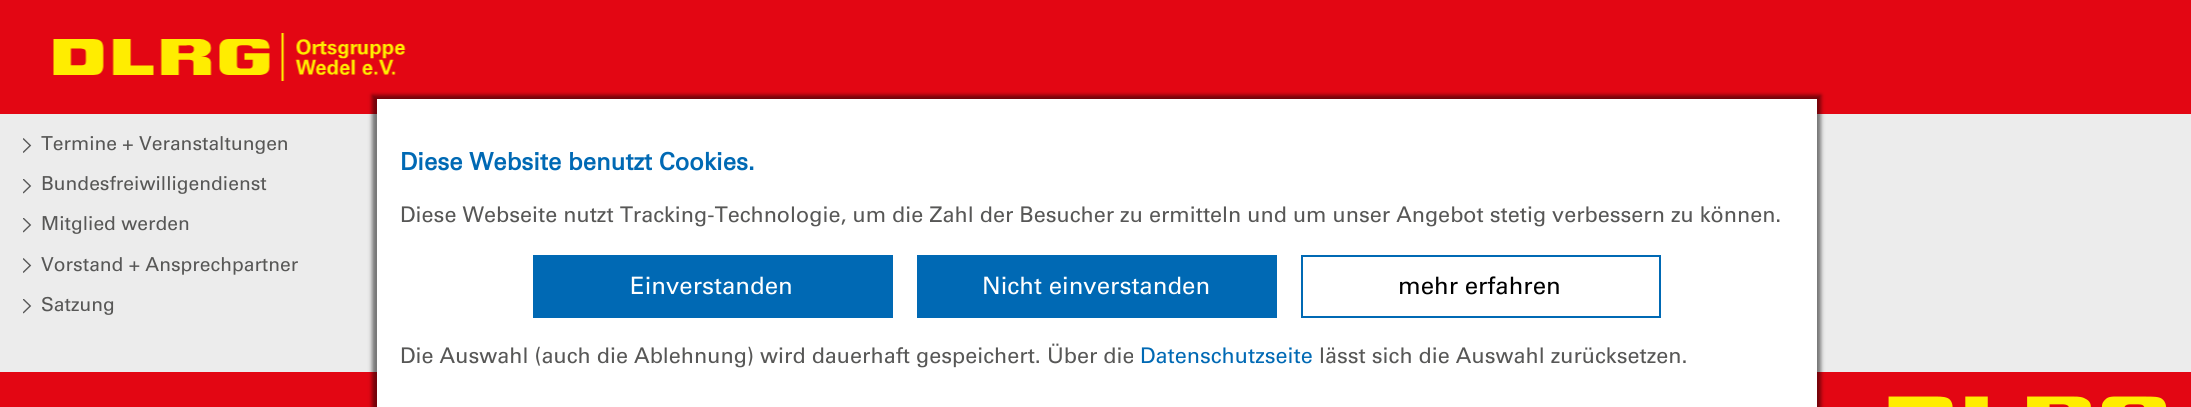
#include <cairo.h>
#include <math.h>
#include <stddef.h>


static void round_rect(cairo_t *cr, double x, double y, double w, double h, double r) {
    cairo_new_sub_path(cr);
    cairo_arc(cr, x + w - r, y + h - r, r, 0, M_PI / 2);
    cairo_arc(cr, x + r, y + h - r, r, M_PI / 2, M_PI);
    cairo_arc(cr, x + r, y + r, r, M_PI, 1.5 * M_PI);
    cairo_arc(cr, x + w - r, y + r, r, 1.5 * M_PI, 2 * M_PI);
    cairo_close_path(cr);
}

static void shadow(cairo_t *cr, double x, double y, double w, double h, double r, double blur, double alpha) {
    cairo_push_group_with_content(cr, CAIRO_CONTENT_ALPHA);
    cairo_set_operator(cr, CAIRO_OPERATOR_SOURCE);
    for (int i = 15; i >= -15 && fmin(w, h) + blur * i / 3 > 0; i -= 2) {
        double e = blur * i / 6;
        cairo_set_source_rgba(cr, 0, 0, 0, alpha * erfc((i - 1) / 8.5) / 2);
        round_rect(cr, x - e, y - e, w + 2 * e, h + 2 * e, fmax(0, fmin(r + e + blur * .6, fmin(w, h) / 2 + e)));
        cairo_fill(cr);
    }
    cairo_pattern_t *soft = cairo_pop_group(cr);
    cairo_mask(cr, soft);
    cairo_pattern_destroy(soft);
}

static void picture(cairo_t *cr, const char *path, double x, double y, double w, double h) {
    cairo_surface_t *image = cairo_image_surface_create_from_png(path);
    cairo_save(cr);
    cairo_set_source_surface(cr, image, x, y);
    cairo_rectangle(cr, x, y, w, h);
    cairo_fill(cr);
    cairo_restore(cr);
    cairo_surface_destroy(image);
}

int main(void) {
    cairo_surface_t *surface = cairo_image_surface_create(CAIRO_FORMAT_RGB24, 2191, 407);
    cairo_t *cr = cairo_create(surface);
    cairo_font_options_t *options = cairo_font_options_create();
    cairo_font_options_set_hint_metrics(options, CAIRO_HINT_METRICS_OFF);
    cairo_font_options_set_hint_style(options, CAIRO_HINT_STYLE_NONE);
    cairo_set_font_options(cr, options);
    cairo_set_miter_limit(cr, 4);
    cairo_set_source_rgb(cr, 0.922, 0.922, 0.922);
    cairo_paint(cr);
    cairo_set_source_rgb(cr, 0.89, 0.024, 0.075);
    cairo_rectangle(cr, 0, 0, 2191, 114);
    cairo_fill(cr);
    picture(cr, "img1.png", 53, 33, 353, 48);
    picture(cr, "img2.png", 23, 138, 9, 15);
    cairo_select_font_face(cr, "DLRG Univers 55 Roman", CAIRO_FONT_SLANT_NORMAL, CAIRO_FONT_WEIGHT_NORMAL);
    cairo_set_font_size(cr, 19.25);
    cairo_set_source_rgb(cr, 0.341, 0.341, 0.337);
    cairo_move_to(cr, 41, 150);
    cairo_show_text(cr, "Termine + Veranstaltungen");
    picture(cr, "img3.png", 23, 179, 9, 15);
    cairo_move_to(cr, 41, 190);
    cairo_show_text(cr, "Bundesfreiwilligendienst");
    picture(cr, "img3.png", 23, 218, 9, 15);
    cairo_move_to(cr, 41, 230);
    cairo_show_text(cr, "Mitglied werden");
    picture(cr, "img2.png", 23, 258, 9, 15);
    cairo_move_to(cr, 41, 271);
    cairo_show_text(cr, "Vorstand + Ansprechpartner");
    picture(cr, "img3.png", 23, 299, 9, 15);
    cairo_move_to(cr, 41, 311);
    cairo_show_text(cr, "Satzung");
    cairo_set_source_rgb(cr, 0.89, 0.024, 0.075);
    cairo_rectangle(cr, 0, 372, 2191, 35);
    cairo_fill(cr);
    cairo_set_source_rgb(cr, 0, 0, 0);
    shadow(cr, 372, 95, 1449, 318, 0, 2, 0.5);
    cairo_set_source_rgb(cr, 1, 1, 1);
    cairo_rectangle(cr, 377, 99, 1440, 308);
    cairo_fill(cr);
    cairo_select_font_face(cr, "DLRG Univers 55 Roman", CAIRO_FONT_SLANT_NORMAL, CAIRO_FONT_WEIGHT_BOLD);
    cairo_set_font_size(cr, 24);
    cairo_set_source_rgb(cr, 0, 0.412, 0.706);
    cairo_move_to(cr, 400, 170);
    cairo_show_text(cr, "Diese Website benutzt Cookies.");
    cairo_select_font_face(cr, "DLRG Univers 55 Roman", CAIRO_FONT_SLANT_NORMAL, CAIRO_FONT_WEIGHT_NORMAL);
    cairo_set_font_size(cr, 21.6);
    cairo_set_source_rgb(cr, 0.341, 0.341, 0.337);
    cairo_move_to(cr, 400, 222);
    cairo_show_text(cr, "Diese Webseite nutzt Tracking-Technologie, um die Zahl der Besucher zu ermitteln und um unser Angebot stetig verbessern zu können.");
    cairo_set_source_rgb(cr, 0, 0.412, 0.706);
    cairo_rectangle(cr, 533, 255, 360, 63);
    cairo_fill(cr);
    cairo_set_font_size(cr, 24);
    cairo_set_source_rgb(cr, 1, 1, 1);
    cairo_move_to(cr, 630, 294);
    cairo_show_text(cr, "Einverstanden");
    cairo_set_source_rgb(cr, 0, 0.412, 0.706);
    cairo_rectangle(cr, 917, 255, 360, 63);
    cairo_fill(cr);
    cairo_set_source_rgb(cr, 1, 1, 1);
    cairo_move_to(cr, 982, 294);
    cairo_show_text(cr, "Nicht einverstanden");
    cairo_rectangle(cr, 1302, 256, 358, 61);
    cairo_set_source_rgb(cr, 0, 0.412, 0.706);
    cairo_stroke(cr);
    cairo_set_source_rgb(cr, 0, 0, 0);
    cairo_move_to(cr, 1398, 294);
    cairo_show_text(cr, "mehr erfahren");
    cairo_set_font_size(cr, 21.6);
    cairo_set_source_rgb(cr, 0.341, 0.341, 0.337);
    cairo_move_to(cr, 400, 363);
    cairo_show_text(cr, "Die Auswahl (auch die Ablehnung) wird dauerhaft gespeichert. Über die");
    cairo_set_source_rgb(cr, 0, 0.412, 0.706);
    cairo_move_to(cr, 1140, 363);
    cairo_show_text(cr, "Datenschutzseite");
    cairo_set_source_rgb(cr, 0.341, 0.341, 0.337);
    cairo_move_to(cr, 1319, 363);
    cairo_show_text(cr, "lässt sich die Auswahl zurücksetzen.");
    picture(cr, "img4.png", 1888, 396, 279, 11);
    cairo_surface_write_to_png(surface, "page.png");
    cairo_font_options_destroy(options);
    cairo_destroy(cr);
    cairo_surface_destroy(surface);
    return 0;
}
